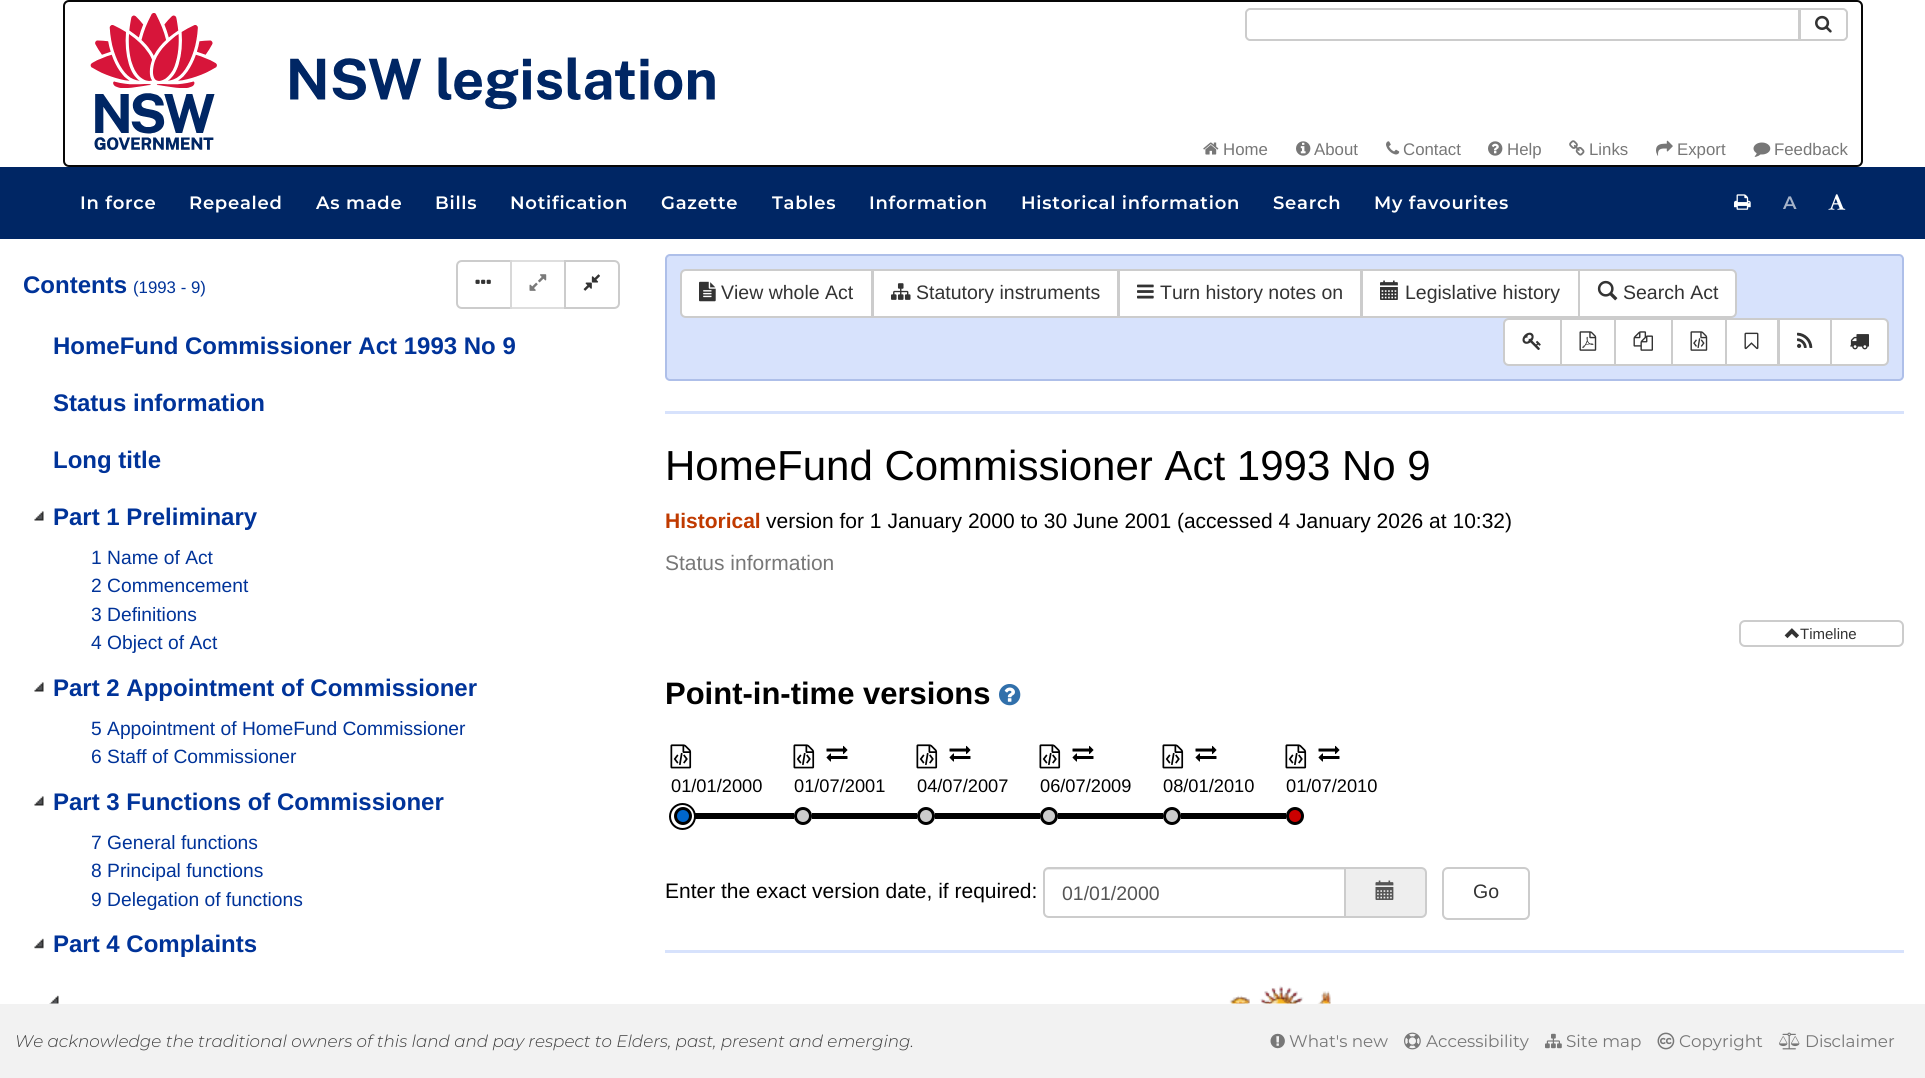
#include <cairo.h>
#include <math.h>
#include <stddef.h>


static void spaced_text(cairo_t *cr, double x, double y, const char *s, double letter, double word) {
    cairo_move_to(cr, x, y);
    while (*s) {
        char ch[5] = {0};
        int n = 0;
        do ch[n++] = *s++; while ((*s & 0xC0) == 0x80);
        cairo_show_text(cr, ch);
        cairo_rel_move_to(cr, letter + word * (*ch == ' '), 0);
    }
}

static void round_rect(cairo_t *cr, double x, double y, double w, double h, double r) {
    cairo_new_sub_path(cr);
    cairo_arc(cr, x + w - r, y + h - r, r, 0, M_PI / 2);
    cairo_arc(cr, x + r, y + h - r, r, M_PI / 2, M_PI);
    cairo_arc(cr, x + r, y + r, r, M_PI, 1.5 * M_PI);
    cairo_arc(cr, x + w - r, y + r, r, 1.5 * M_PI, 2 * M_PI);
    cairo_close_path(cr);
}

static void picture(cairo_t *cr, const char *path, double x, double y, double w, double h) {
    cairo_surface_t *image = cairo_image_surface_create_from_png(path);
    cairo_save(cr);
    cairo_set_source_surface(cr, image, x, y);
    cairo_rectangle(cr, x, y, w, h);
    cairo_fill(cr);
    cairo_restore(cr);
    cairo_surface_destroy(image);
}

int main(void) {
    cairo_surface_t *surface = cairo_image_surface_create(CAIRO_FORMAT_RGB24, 1925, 1078);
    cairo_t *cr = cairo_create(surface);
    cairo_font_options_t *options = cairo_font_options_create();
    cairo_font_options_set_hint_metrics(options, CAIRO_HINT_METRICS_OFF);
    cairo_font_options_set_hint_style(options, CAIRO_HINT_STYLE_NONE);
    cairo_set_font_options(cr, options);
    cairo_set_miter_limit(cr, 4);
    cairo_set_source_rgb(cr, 1, 1, 1);
    cairo_paint(cr);
    round_rect(cr, 64, 1, 1798, 165, 5);
    cairo_set_source_rgb(cr, 0.031, 0.031, 0.031);
    cairo_stroke(cr);
    picture(cr, "img1.png", 90, 13, 625, 137);
    cairo_new_path(cr);
    cairo_move_to(cr, 1800, 9);
    cairo_line_to(cr, 1843, 9);
    cairo_curve_to(cr, 1845, 9, 1847, 11, 1847, 13);
    cairo_line_to(cr, 1847, 36);
    cairo_curve_to(cr, 1847, 38, 1845, 40, 1843, 40);
    cairo_line_to(cr, 1800, 40);
    cairo_close_path(cr);
    cairo_set_source_rgb(cr, 0.8, 0.8, 0.8);
    cairo_stroke(cr);
    cairo_set_source_rgb(cr, 1, 1, 1);
    cairo_new_path(cr);
    cairo_move_to(cr, 1250, 9);
    cairo_line_to(cr, 1799, 9);
    cairo_line_to(cr, 1799, 40);
    cairo_line_to(cr, 1250, 40);
    cairo_curve_to(cr, 1248, 40, 1246, 38, 1246, 36);
    cairo_line_to(cr, 1246, 13);
    cairo_curve_to(cr, 1246, 11, 1248, 9, 1250, 9);
    cairo_close_path(cr);
    cairo_fill_preserve(cr);
    cairo_set_source_rgb(cr, 0.8, 0.8, 0.8);
    cairo_stroke(cr);
    picture(cr, "img2.png", 1815, 15, 17, 18);
    picture(cr, "img3.png", 1203, 142, 16, 13);
    cairo_select_font_face(cr, "Liberation Sans", CAIRO_FONT_SLANT_NORMAL, CAIRO_FONT_WEIGHT_NORMAL);
    cairo_set_font_size(cr, 16.8);
    cairo_set_source_rgb(cr, 0.467, 0.467, 0.467);
    cairo_move_to(cr, 1223, 155);
    cairo_show_text(cr, "Home");
    picture(cr, "img4.png", 1296, 141, 15, 15);
    cairo_move_to(cr, 1314, 155);
    cairo_show_text(cr, "About");
    picture(cr, "img5.png", 1386, 141, 14, 14);
    cairo_move_to(cr, 1403, 155);
    cairo_show_text(cr, "Contact");
    picture(cr, "img6.png", 1488, 141, 15, 15);
    cairo_move_to(cr, 1507, 155);
    cairo_show_text(cr, "Help");
    picture(cr, "img7.png", 1569, 140, 16, 16);
    cairo_move_to(cr, 1589, 155);
    cairo_show_text(cr, "Links");
    picture(cr, "img8.png", 1656, 140, 17, 16);
    cairo_move_to(cr, 1677, 155);
    cairo_show_text(cr, "Export");
    picture(cr, "img9.png", 1753, 142, 18, 15);
    cairo_move_to(cr, 1774, 155);
    cairo_show_text(cr, "Feedback");
    cairo_set_source_rgb(cr, 0, 0.149, 0.392);
    cairo_rectangle(cr, 0, 167, 1925, 72);
    cairo_fill(cr);
    cairo_select_font_face(cr, "Montserrat SemiBold", CAIRO_FONT_SLANT_NORMAL, CAIRO_FONT_WEIGHT_NORMAL);
    cairo_set_font_size(cr, 18);
    cairo_set_source_rgb(cr, 1, 1, 1);
    spaced_text(cr, 80, 209, "In force", 0.75, 0);
    spaced_text(cr, 189, 209, "Repealed", 0.75, 0);
    spaced_text(cr, 316, 209, "As made", 0.75, 0);
    spaced_text(cr, 435, 209, "Bills", 0.75, 0);
    spaced_text(cr, 510, 209, "Notification", 0.75, 0);
    spaced_text(cr, 661, 209, "Gazette", 0.75, 0);
    spaced_text(cr, 772, 209, "Tables", 0.75, 0);
    spaced_text(cr, 869, 209, "Information", 0.75, 0);
    spaced_text(cr, 1021, 209, "Historical information", 0.75, 0);
    spaced_text(cr, 1273, 209, "Search", 0.75, 0);
    spaced_text(cr, 1374, 209, "My favourites", 0.75, 0);
    picture(cr, "img10.png", 1734, 194, 17, 16);
    cairo_set_source_rgb(cr, 0.651, 0.702, 0.788);
    spaced_text(cr, 1783, 209, "A", 0.75, 0);
    picture(cr, "img11.png", 1828, 194, 18, 16);
    cairo_select_font_face(cr, "Liberation Sans", CAIRO_FONT_SLANT_NORMAL, CAIRO_FONT_WEIGHT_BOLD);
    cairo_set_font_size(cr, 24);
    cairo_set_source_rgb(cr, 0, 0.2, 0.6);
    cairo_move_to(cr, 23, 293);
    cairo_show_text(cr, "Contents");
    cairo_select_font_face(cr, "Liberation Sans", CAIRO_FONT_SLANT_NORMAL, CAIRO_FONT_WEIGHT_NORMAL);
    cairo_set_font_size(cr, 16.8);
    cairo_move_to(cr, 133, 293);
    cairo_show_text(cr, "(1993 - 9)");
    cairo_new_path(cr);
    cairo_move_to(cr, 462, 261);
    cairo_line_to(cr, 511, 261);
    cairo_line_to(cr, 511, 308);
    cairo_line_to(cr, 462, 308);
    cairo_curve_to(cr, 459, 308, 457, 306, 457, 303);
    cairo_line_to(cr, 457, 266);
    cairo_curve_to(cr, 457, 263, 459, 261, 462, 261);
    cairo_close_path(cr);
    cairo_set_source_rgb(cr, 0.8, 0.8, 0.8);
    cairo_stroke(cr);
    picture(cr, "img12.png", 475, 279, 16, 5);
    cairo_set_source_rgba(cr, 1, 1, 1, 0.65);
    cairo_rectangle(cr, 510, 260, 2, 49);
    cairo_fill(cr);
    cairo_rectangle(cr, 511, 261, 54, 47);
    cairo_set_source_rgba(cr, 0.8, 0.8, 0.8, 0.65);
    cairo_stroke(cr);
    picture(cr, "img13.png", 529, 274, 18, 17);
    cairo_set_source_rgb(cr, 1, 1, 1);
    cairo_new_path(cr);
    cairo_move_to(cr, 565, 261);
    cairo_line_to(cr, 614, 261);
    cairo_curve_to(cr, 617, 261, 619, 263, 619, 266);
    cairo_line_to(cr, 619, 303);
    cairo_curve_to(cr, 619, 306, 617, 308, 614, 308);
    cairo_line_to(cr, 565, 308);
    cairo_close_path(cr);
    cairo_fill_preserve(cr);
    cairo_set_source_rgb(cr, 0.8, 0.8, 0.8);
    cairo_stroke(cr);
    picture(cr, "img14.png", 583, 274, 17, 17);
    cairo_select_font_face(cr, "Liberation Sans", CAIRO_FONT_SLANT_NORMAL, CAIRO_FONT_WEIGHT_BOLD);
    cairo_set_font_size(cr, 24);
    cairo_set_source_rgb(cr, 0, 0.2, 0.6);
    cairo_move_to(cr, 53, 354);
    cairo_show_text(cr, "HomeFund Commissioner Act 1993 No 9");
    cairo_move_to(cr, 53, 411);
    cairo_show_text(cr, "Status information");
    cairo_move_to(cr, 53, 468);
    cairo_show_text(cr, "Long title");
    picture(cr, "img15.png", 34, 511, 10, 10);
    cairo_move_to(cr, 53, 525);
    cairo_show_text(cr, "Part 1 Preliminary");
    cairo_select_font_face(cr, "Liberation Sans", CAIRO_FONT_SLANT_NORMAL, CAIRO_FONT_WEIGHT_NORMAL);
    cairo_set_font_size(cr, 19.25);
    cairo_move_to(cr, 91, 564);
    cairo_show_text(cr, "1 Name of Act");
    cairo_move_to(cr, 91, 592);
    cairo_show_text(cr, "2 Commencement");
    cairo_move_to(cr, 91, 621);
    cairo_show_text(cr, "3 Definitions");
    cairo_move_to(cr, 91, 649);
    cairo_show_text(cr, "4 Object of Act");
    picture(cr, "img15.png", 34, 682, 10, 10);
    cairo_select_font_face(cr, "Liberation Sans", CAIRO_FONT_SLANT_NORMAL, CAIRO_FONT_WEIGHT_BOLD);
    cairo_set_font_size(cr, 24);
    cairo_move_to(cr, 53, 696);
    cairo_show_text(cr, "Part 2 Appointment of Commissioner");
    cairo_select_font_face(cr, "Liberation Sans", CAIRO_FONT_SLANT_NORMAL, CAIRO_FONT_WEIGHT_NORMAL);
    cairo_set_font_size(cr, 19.25);
    cairo_move_to(cr, 91, 735);
    cairo_show_text(cr, "5 Appointment of HomeFund Commissioner");
    cairo_move_to(cr, 91, 763);
    cairo_show_text(cr, "6 Staff of Commissioner");
    picture(cr, "img15.png", 34, 796, 10, 10);
    cairo_select_font_face(cr, "Liberation Sans", CAIRO_FONT_SLANT_NORMAL, CAIRO_FONT_WEIGHT_BOLD);
    cairo_set_font_size(cr, 24);
    cairo_move_to(cr, 53, 810);
    cairo_show_text(cr, "Part 3 Functions of Commissioner");
    cairo_select_font_face(cr, "Liberation Sans", CAIRO_FONT_SLANT_NORMAL, CAIRO_FONT_WEIGHT_NORMAL);
    cairo_set_font_size(cr, 19.25);
    cairo_move_to(cr, 91, 849);
    cairo_show_text(cr, "7 General functions");
    cairo_move_to(cr, 91, 877);
    cairo_show_text(cr, "8 Principal functions");
    cairo_move_to(cr, 91, 906);
    cairo_show_text(cr, "9 Delegation of functions");
    picture(cr, "img16.png", 34, 938, 10, 11);
    cairo_select_font_face(cr, "Liberation Sans", CAIRO_FONT_SLANT_NORMAL, CAIRO_FONT_WEIGHT_BOLD);
    cairo_set_font_size(cr, 24);
    cairo_move_to(cr, 53, 952);
    cairo_show_text(cr, "Part 4 Complaints");
    picture(cr, "img17.png", 49, 995, 10, 9);
    cairo_set_source_rgb(cr, 0.843, 0.886, 0.988);
    round_rect(cr, 666, 255, 1237, 125, 4);
    cairo_fill_preserve(cr);
    cairo_set_source_rgb(cr, 0.682, 0.749, 0.914);
    cairo_stroke(cr);
    cairo_set_source_rgb(cr, 1, 1, 1);
    cairo_new_path(cr);
    cairo_move_to(cr, 686, 270);
    cairo_line_to(cr, 872, 270);
    cairo_line_to(cr, 872, 317);
    cairo_line_to(cr, 686, 317);
    cairo_curve_to(cr, 683, 317, 681, 315, 681, 312);
    cairo_line_to(cr, 681, 275);
    cairo_curve_to(cr, 681, 272, 683, 270, 686, 270);
    cairo_close_path(cr);
    cairo_fill_preserve(cr);
    cairo_set_source_rgb(cr, 0.8, 0.8, 0.8);
    cairo_stroke(cr);
    picture(cr, "img18.png", 699, 281, 17, 21);
    cairo_select_font_face(cr, "Liberation Sans", CAIRO_FONT_SLANT_NORMAL, CAIRO_FONT_WEIGHT_NORMAL);
    cairo_set_font_size(cr, 19.5);
    cairo_set_source_rgb(cr, 0.2, 0.2, 0.2);
    cairo_move_to(cr, 721, 299);
    cairo_show_text(cr, "View whole Act");
    cairo_set_source_rgb(cr, 1, 1, 1);
    cairo_rectangle(cr, 873, 270, 245, 47);
    cairo_fill_preserve(cr);
    cairo_set_source_rgb(cr, 0.8, 0.8, 0.8);
    cairo_stroke(cr);
    picture(cr, "img19.png", 891, 283, 20, 17);
    cairo_set_source_rgb(cr, 0.2, 0.2, 0.2);
    cairo_move_to(cr, 916, 299);
    cairo_show_text(cr, "Statutory instruments");
    cairo_set_source_rgb(cr, 1, 1, 1);
    cairo_rectangle(cr, 1119, 270, 242, 47);
    cairo_fill_preserve(cr);
    cairo_set_source_rgb(cr, 0.8, 0.8, 0.8);
    cairo_stroke(cr);
    picture(cr, "img20.png", 1137, 284, 17, 15);
    cairo_set_source_rgb(cr, 0.2, 0.2, 0.2);
    cairo_move_to(cr, 1160, 299);
    cairo_show_text(cr, "Turn history notes on");
    cairo_set_source_rgb(cr, 1, 1, 1);
    cairo_rectangle(cr, 1362, 270, 217, 47);
    cairo_fill_preserve(cr);
    cairo_set_source_rgb(cr, 0.8, 0.8, 0.8);
    cairo_stroke(cr);
    picture(cr, "img21.png", 1380, 280, 18, 20);
    cairo_set_source_rgb(cr, 0.2, 0.2, 0.2);
    cairo_move_to(cr, 1405, 299);
    cairo_show_text(cr, "Legislative history");
    cairo_set_source_rgb(cr, 1, 1, 1);
    cairo_new_path(cr);
    cairo_move_to(cr, 1579, 270);
    cairo_line_to(cr, 1731, 270);
    cairo_curve_to(cr, 1734, 270, 1736, 272, 1736, 275);
    cairo_line_to(cr, 1736, 312);
    cairo_curve_to(cr, 1736, 315, 1734, 317, 1731, 317);
    cairo_line_to(cr, 1579, 317);
    cairo_close_path(cr);
    cairo_fill_preserve(cr);
    cairo_set_source_rgb(cr, 0.8, 0.8, 0.8);
    cairo_stroke(cr);
    picture(cr, "img22.png", 1597, 280, 21, 21);
    cairo_set_source_rgb(cr, 0.2, 0.2, 0.2);
    cairo_move_to(cr, 1623, 299);
    cairo_show_text(cr, "Search Act");
    cairo_set_source_rgb(cr, 1, 1, 1);
    cairo_new_path(cr);
    cairo_move_to(cr, 1509, 319);
    cairo_line_to(cr, 1561, 319);
    cairo_line_to(cr, 1561, 365);
    cairo_line_to(cr, 1509, 365);
    cairo_curve_to(cr, 1506, 365, 1504, 363, 1504, 360);
    cairo_line_to(cr, 1504, 324);
    cairo_curve_to(cr, 1504, 321, 1506, 319, 1509, 319);
    cairo_close_path(cr);
    cairo_fill_preserve(cr);
    cairo_set_source_rgb(cr, 0.8, 0.8, 0.8);
    cairo_stroke(cr);
    picture(cr, "img23.png", 1522, 332, 19, 18);
    cairo_set_source_rgb(cr, 1, 1, 1);
    cairo_rectangle(cr, 1561, 319, 54, 46);
    cairo_fill_preserve(cr);
    cairo_set_source_rgb(cr, 0.8, 0.8, 0.8);
    cairo_stroke(cr);
    picture(cr, "img24.png", 1579, 331, 18, 20);
    cairo_set_source_rgb(cr, 1, 1, 1);
    cairo_rectangle(cr, 1615, 319, 57, 46);
    cairo_fill_preserve(cr);
    cairo_set_source_rgb(cr, 0.8, 0.8, 0.8);
    cairo_stroke(cr);
    picture(cr, "img25.png", 1633, 331, 20, 20);
    cairo_set_source_rgb(cr, 1, 1, 1);
    cairo_rectangle(cr, 1672, 319, 54, 46);
    cairo_fill_preserve(cr);
    cairo_set_source_rgb(cr, 0.8, 0.8, 0.8);
    cairo_stroke(cr);
    picture(cr, "img26.png", 1690, 331, 18, 20);
    cairo_set_source_rgb(cr, 1, 1, 1);
    cairo_rectangle(cr, 1726, 319, 52, 46);
    cairo_fill_preserve(cr);
    cairo_set_source_rgb(cr, 0.8, 0.8, 0.8);
    cairo_stroke(cr);
    picture(cr, "img27.png", 1744, 332, 15, 18);
    cairo_set_source_rgb(cr, 1, 1, 1);
    cairo_rectangle(cr, 1779, 319, 52, 46);
    cairo_fill_preserve(cr);
    cairo_set_source_rgb(cr, 0.8, 0.8, 0.8);
    cairo_stroke(cr);
    picture(cr, "img28.png", 1797, 332, 16, 16);
    cairo_set_source_rgb(cr, 1, 1, 1);
    cairo_new_path(cr);
    cairo_move_to(cr, 1831, 319);
    cairo_line_to(cr, 1883, 319);
    cairo_curve_to(cr, 1886, 319, 1888, 321, 1888, 324);
    cairo_line_to(cr, 1888, 360);
    cairo_curve_to(cr, 1888, 363, 1886, 365, 1883, 365);
    cairo_line_to(cr, 1831, 365);
    cairo_close_path(cr);
    cairo_fill_preserve(cr);
    cairo_set_source_rgb(cr, 0.8, 0.8, 0.8);
    cairo_stroke(cr);
    picture(cr, "img29.png", 1850, 334, 19, 16);
    cairo_set_source_rgb(cr, 0.843, 0.886, 0.988);
    cairo_rectangle(cr, 665, 411, 1239, 3);
    cairo_fill(cr);
    cairo_set_font_size(cr, 42);
    cairo_set_source_rgb(cr, 0, 0, 0);
    cairo_move_to(cr, 665, 480);
    cairo_show_text(cr, "HomeFund Commissioner Act 1993 No 9");
    cairo_select_font_face(cr, "Liberation Sans", CAIRO_FONT_SLANT_NORMAL, CAIRO_FONT_WEIGHT_BOLD);
    cairo_set_font_size(cr, 21);
    cairo_set_source_rgb(cr, 0.753, 0.227, 0);
    cairo_move_to(cr, 665, 528);
    cairo_show_text(cr, "Historical");
    cairo_select_font_face(cr, "Liberation Sans", CAIRO_FONT_SLANT_NORMAL, CAIRO_FONT_WEIGHT_NORMAL);
    cairo_set_source_rgb(cr, 0, 0, 0);
    cairo_move_to(cr, 766, 528);
    cairo_show_text(cr, "version for 1 January 2000 to 30 June 2001 (accessed 4 January 2026 at 10:32)");
    cairo_set_source_rgb(cr, 0.467, 0.467, 0.467);
    cairo_move_to(cr, 665, 570);
    cairo_show_text(cr, "Status information");
    round_rect(cr, 1740, 621, 163, 25, 5);
    cairo_set_source_rgb(cr, 0.8, 0.8, 0.8);
    cairo_stroke(cr);
    picture(cr, "img30.png", 1784, 628, 15, 11);
    cairo_set_font_size(cr, 15);
    cairo_set_source_rgb(cr, 0.2, 0.2, 0.2);
    cairo_move_to(cr, 1800, 639);
    cairo_show_text(cr, "Timeline");
    cairo_select_font_face(cr, "Liberation Sans", CAIRO_FONT_SLANT_NORMAL, CAIRO_FONT_WEIGHT_BOLD);
    cairo_set_font_size(cr, 31);
    cairo_set_source_rgb(cr, 0, 0, 0);
    cairo_move_to(cr, 665, 704);
    cairo_show_text(cr, "Point-in-time versions");
    picture(cr, "img31.png", 999, 684, 22, 22);
    picture(cr, "img32.png", 670, 744, 22, 25);
    cairo_select_font_face(cr, "Liberation Sans", CAIRO_FONT_SLANT_NORMAL, CAIRO_FONT_WEIGHT_NORMAL);
    cairo_set_font_size(cr, 18.25);
    cairo_move_to(cr, 671, 792);
    cairo_show_text(cr, "01/01/2000");
    cairo_new_path(cr);
    cairo_arc(cr, 682.5, 816.5, 12.5, 0, 2 * M_PI);
    cairo_stroke(cr);
    cairo_set_source_rgb(cr, 0, 0.4, 0.8);
    cairo_arc(cr, 683, 816, 7.5, 0, 2 * M_PI);
    cairo_fill_preserve(cr);
    cairo_set_source_rgb(cr, 0, 0, 0);
    cairo_set_line_width(cr, 3);
    cairo_stroke(cr);
    cairo_rectangle(cr, 695, 813, 99, 6);
    cairo_fill(cr);
    picture(cr, "img32.png", 793, 744, 22, 25);
    picture(cr, "img33.png", 826, 745, 22, 17);
    cairo_move_to(cr, 794, 792);
    cairo_show_text(cr, "01/07/2001");
    cairo_set_source_rgb(cr, 0.8, 0.8, 0.8);
    cairo_new_path(cr);
    cairo_arc(cr, 803, 816, 7.5, 0, 2 * M_PI);
    cairo_fill_preserve(cr);
    cairo_set_source_rgb(cr, 0, 0, 0);
    cairo_stroke(cr);
    cairo_rectangle(cr, 812, 813, 105, 6);
    cairo_fill(cr);
    picture(cr, "img32.png", 916, 744, 22, 25);
    picture(cr, "img33.png", 949, 745, 22, 17);
    cairo_move_to(cr, 917, 792);
    cairo_show_text(cr, "04/07/2007");
    cairo_set_source_rgb(cr, 0.8, 0.8, 0.8);
    cairo_new_path(cr);
    cairo_arc(cr, 926, 816, 7.5, 0, 2 * M_PI);
    cairo_fill_preserve(cr);
    cairo_set_source_rgb(cr, 0, 0, 0);
    cairo_stroke(cr);
    cairo_rectangle(cr, 935, 813, 105, 6);
    cairo_fill(cr);
    picture(cr, "img32.png", 1039, 744, 22, 25);
    picture(cr, "img33.png", 1072, 745, 22, 17);
    cairo_move_to(cr, 1040, 792);
    cairo_show_text(cr, "06/07/2009");
    cairo_set_source_rgb(cr, 0.8, 0.8, 0.8);
    cairo_new_path(cr);
    cairo_arc(cr, 1049, 816, 7.5, 0, 2 * M_PI);
    cairo_fill_preserve(cr);
    cairo_set_source_rgb(cr, 0, 0, 0);
    cairo_stroke(cr);
    cairo_rectangle(cr, 1058, 813, 105, 6);
    cairo_fill(cr);
    picture(cr, "img32.png", 1162, 744, 22, 25);
    picture(cr, "img33.png", 1195, 745, 22, 17);
    cairo_move_to(cr, 1163, 792);
    cairo_show_text(cr, "08/01/2010");
    cairo_set_source_rgb(cr, 0.8, 0.8, 0.8);
    cairo_new_path(cr);
    cairo_arc(cr, 1172, 816, 7.5, 0, 2 * M_PI);
    cairo_fill_preserve(cr);
    cairo_set_source_rgb(cr, 0, 0, 0);
    cairo_stroke(cr);
    cairo_rectangle(cr, 1181, 813, 105, 6);
    cairo_fill(cr);
    picture(cr, "img32.png", 1285, 744, 22, 25);
    picture(cr, "img33.png", 1318, 745, 22, 17);
    cairo_move_to(cr, 1286, 792);
    cairo_show_text(cr, "01/07/2010");
    cairo_set_source_rgb(cr, 0.8, 0, 0);
    cairo_new_path(cr);
    cairo_arc(cr, 1295, 816, 7.5, 0, 2 * M_PI);
    cairo_fill_preserve(cr);
    cairo_set_source_rgb(cr, 0, 0, 0);
    cairo_stroke(cr);
    cairo_set_font_size(cr, 21);
    cairo_move_to(cr, 665, 898);
    cairo_show_text(cr, "Enter the exact version date, if required:");
    cairo_set_source_rgb(cr, 0.933, 0.933, 0.933);
    cairo_new_path(cr);
    cairo_move_to(cr, 1345, 868);
    cairo_line_to(cr, 1421, 868);
    cairo_curve_to(cr, 1424, 868, 1426, 870, 1426, 873);
    cairo_line_to(cr, 1426, 912);
    cairo_curve_to(cr, 1426, 915, 1424, 917, 1421, 917);
    cairo_line_to(cr, 1345, 917);
    cairo_close_path(cr);
    cairo_fill_preserve(cr);
    cairo_set_source_rgb(cr, 0.8, 0.8, 0.8);
    cairo_set_line_width(cr, 2);
    cairo_stroke(cr);
    cairo_set_source_rgb(cr, 1, 1, 1);
    cairo_new_path(cr);
    cairo_move_to(cr, 1049, 867);
    cairo_line_to(cr, 1346, 867);
    cairo_line_to(cr, 1346, 918);
    cairo_line_to(cr, 1049, 918);
    cairo_curve_to(cr, 1045.5, 918, 1043, 915.5, 1043, 912);
    cairo_line_to(cr, 1043, 873);
    cairo_curve_to(cr, 1043, 869.5, 1045.5, 867, 1049, 867);
    cairo_close_path(cr);
    cairo_fill(cr);
    cairo_set_source_rgb(cr, 0.925, 0.925, 0.925);
    cairo_new_path(cr);
    cairo_move_to(cr, 1048, 870);
    cairo_line_to(cr, 1344, 870);
    cairo_line_to(cr, 1344, 869);
    cairo_line_to(cr, 1049, 869);
    cairo_curve_to(cr, 1046, 869, 1044, 871, 1044, 874);
    cairo_curve_to(cr, 1044, 872, 1046, 870, 1048, 870);
    cairo_close_path(cr);
    cairo_fill(cr);
    cairo_new_path(cr);
    cairo_move_to(cr, 1049, 868);
    cairo_line_to(cr, 1345, 868);
    cairo_line_to(cr, 1345, 917);
    cairo_line_to(cr, 1049, 917);
    cairo_curve_to(cr, 1046, 917, 1044, 915, 1044, 912);
    cairo_line_to(cr, 1044, 873);
    cairo_curve_to(cr, 1044, 870, 1046, 868, 1049, 868);
    cairo_close_path(cr);
    cairo_set_source_rgb(cr, 0.8, 0.8, 0.8);
    cairo_stroke(cr);
    cairo_set_font_size(cr, 19.5);
    cairo_set_source_rgb(cr, 0.333, 0.333, 0.333);
    cairo_move_to(cr, 1062, 900);
    cairo_show_text(cr, "01/01/2000");
    picture(cr, "img34.png", 1375, 880, 19, 20);
    round_rect(cr, 1443, 868, 86, 51, 5);
    cairo_set_source_rgb(cr, 0.8, 0.8, 0.8);
    cairo_stroke(cr);
    cairo_set_source_rgb(cr, 0.2, 0.2, 0.2);
    cairo_move_to(cr, 1473, 898);
    cairo_show_text(cr, "Go");
    cairo_set_source_rgb(cr, 0.843, 0.886, 0.988);
    cairo_rectangle(cr, 665, 950, 1239, 3);
    cairo_fill(cr);
    picture(cr, "img35.png", 1229, 985, 102, 19);
    cairo_set_source_rgb(cr, 0.949, 0.949, 0.949);
    cairo_rectangle(cr, 0, 1004, 1925, 74);
    cairo_fill(cr);
    cairo_select_font_face(cr, "Montserrat Light", CAIRO_FONT_SLANT_ITALIC, CAIRO_FONT_WEIGHT_NORMAL);
    cairo_set_font_size(cr, 16.8);
    cairo_set_source_rgb(cr, 0.239, 0.239, 0.239);
    cairo_move_to(cr, 15, 1047);
    cairo_show_text(cr, "We acknowledge the traditional owners of this land and pay respect to Elders, past, present and emerging.");
    picture(cr, "img36.png", 1270, 1033, 15, 16);
    cairo_select_font_face(cr, "Montserrat", CAIRO_FONT_SLANT_NORMAL, CAIRO_FONT_WEIGHT_NORMAL);
    cairo_set_source_rgb(cr, 0.467, 0.467, 0.467);
    cairo_move_to(cr, 1289, 1047);
    cairo_show_text(cr, "What's new");
    picture(cr, "img37.png", 1404, 1032, 17, 18);
    cairo_move_to(cr, 1426, 1047);
    cairo_show_text(cr, "Accessibility");
    picture(cr, "img38.png", 1545, 1033, 17, 16);
    cairo_move_to(cr, 1566, 1047);
    cairo_show_text(cr, "Site map");
    picture(cr, "img39.png", 1657, 1032, 18, 18);
    cairo_move_to(cr, 1679, 1047);
    cairo_show_text(cr, "Copyright");
    picture(cr, "img40.png", 1779, 1032, 21, 18);
    cairo_move_to(cr, 1805, 1047);
    cairo_show_text(cr, "Disclaimer");
    cairo_surface_write_to_png(surface, "page.png");
    cairo_font_options_destroy(options);
    cairo_destroy(cr);
    cairo_surface_destroy(surface);
    return 0;
}
